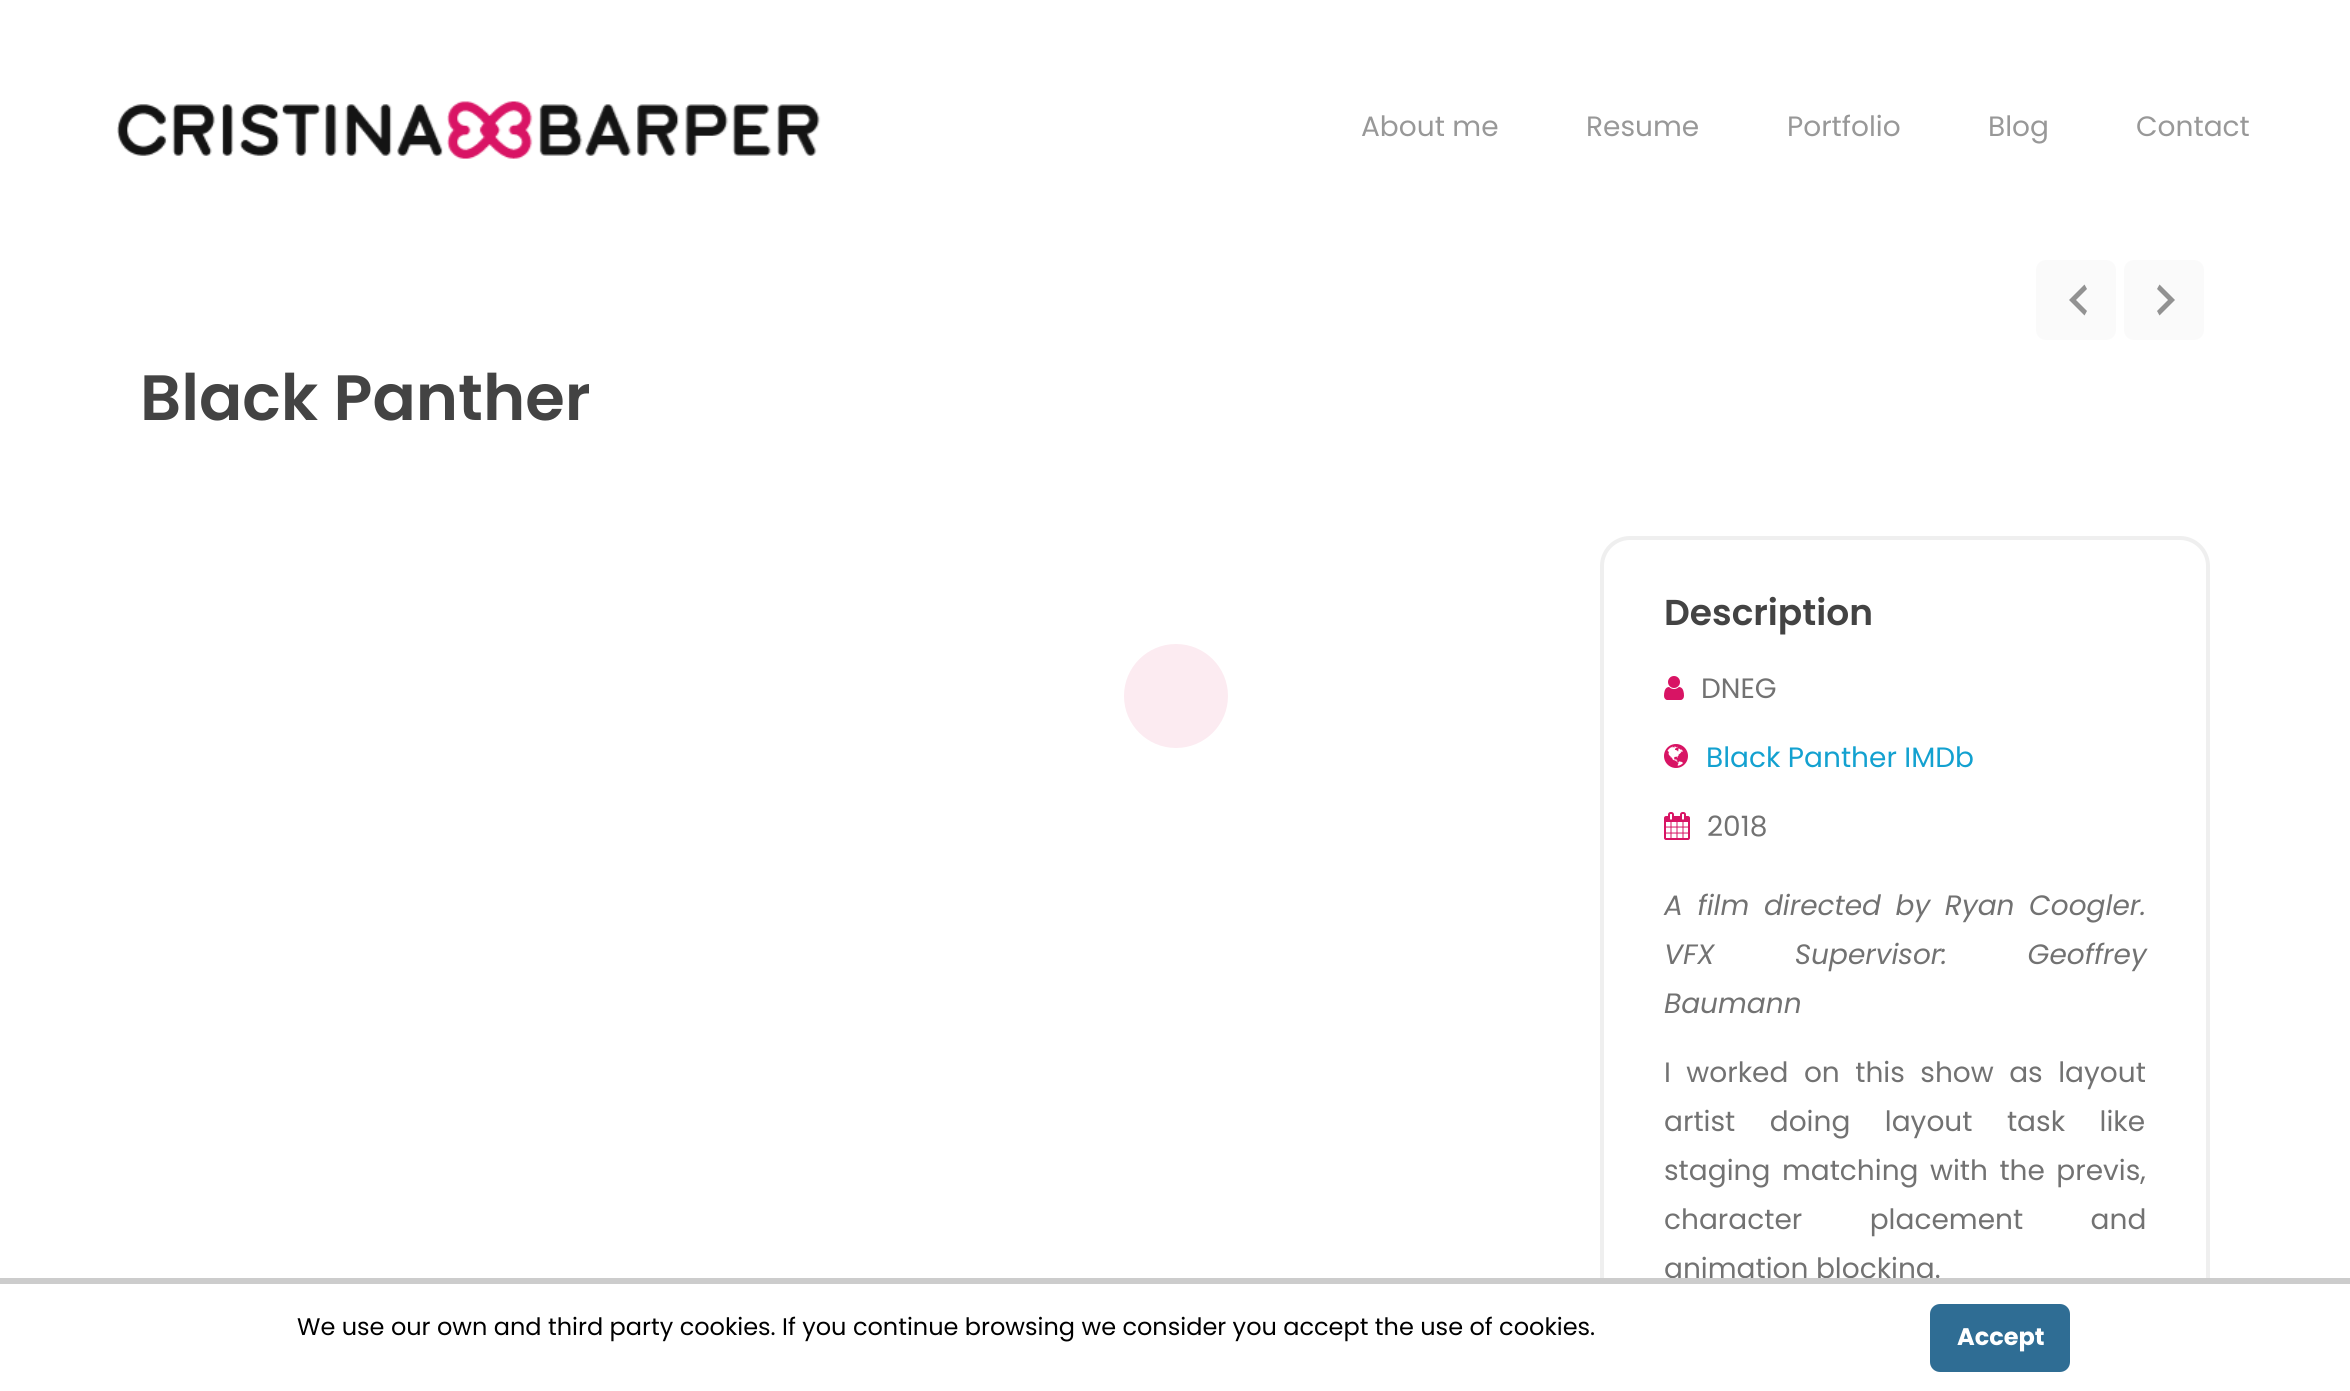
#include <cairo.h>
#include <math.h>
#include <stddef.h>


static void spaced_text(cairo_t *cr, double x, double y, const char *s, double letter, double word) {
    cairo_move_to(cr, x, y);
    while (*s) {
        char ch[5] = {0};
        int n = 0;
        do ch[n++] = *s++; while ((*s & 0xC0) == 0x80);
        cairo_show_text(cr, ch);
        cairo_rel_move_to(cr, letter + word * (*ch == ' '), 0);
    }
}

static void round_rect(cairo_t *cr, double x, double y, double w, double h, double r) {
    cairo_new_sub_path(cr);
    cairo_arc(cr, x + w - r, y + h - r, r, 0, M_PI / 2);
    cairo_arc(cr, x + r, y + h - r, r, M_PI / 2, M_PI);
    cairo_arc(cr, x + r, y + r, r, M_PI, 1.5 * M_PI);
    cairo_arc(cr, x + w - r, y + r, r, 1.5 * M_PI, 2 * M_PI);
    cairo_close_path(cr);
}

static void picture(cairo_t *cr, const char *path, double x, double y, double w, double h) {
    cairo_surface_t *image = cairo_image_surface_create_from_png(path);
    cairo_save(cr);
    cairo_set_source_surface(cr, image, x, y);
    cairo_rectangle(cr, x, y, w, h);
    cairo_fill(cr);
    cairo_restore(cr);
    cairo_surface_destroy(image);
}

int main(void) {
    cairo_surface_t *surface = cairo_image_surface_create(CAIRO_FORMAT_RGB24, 2350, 1391);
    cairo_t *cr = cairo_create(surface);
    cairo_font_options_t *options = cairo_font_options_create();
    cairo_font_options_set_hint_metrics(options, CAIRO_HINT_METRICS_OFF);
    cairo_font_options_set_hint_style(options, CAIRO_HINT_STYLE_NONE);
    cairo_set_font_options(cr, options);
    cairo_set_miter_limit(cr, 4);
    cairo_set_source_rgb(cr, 1, 1, 1);
    cairo_paint(cr);
    picture(cr, "img1.png", 117, 101, 704, 58);
    cairo_select_font_face(cr, "Poppins", CAIRO_FONT_SLANT_NORMAL, CAIRO_FONT_WEIGHT_NORMAL);
    cairo_set_font_size(cr, 28);
    cairo_set_source_rgb(cr, 0.596, 0.596, 0.596);
    cairo_move_to(cr, 1361, 136);
    cairo_show_text(cr, "About me");
    cairo_move_to(cr, 1586, 136);
    cairo_show_text(cr, "Resume");
    cairo_move_to(cr, 1787, 136);
    cairo_show_text(cr, "Portfolio");
    cairo_move_to(cr, 1988, 136);
    cairo_show_text(cr, "Blog");
    cairo_move_to(cr, 2136, 136);
    cairo_show_text(cr, "Contact");
    cairo_set_source_rgb(cr, 0.98, 0.98, 0.98);
    round_rect(cr, 2036, 260, 80, 80, 10);
    cairo_fill(cr);
    cairo_set_source_rgb(cr, 0.573, 0.573, 0.573);
    cairo_new_path(cr);
    cairo_move_to(cr, 2087, 289);
    cairo_line_to(cr, 2076, 300);
    cairo_line_to(cr, 2087, 311);
    cairo_line_to(cr, 2084.5, 315.5);
    cairo_line_to(cr, 2069, 300);
    cairo_line_to(cr, 2084.5, 284.5);
    cairo_close_path(cr);
    cairo_fill(cr);
    cairo_set_source_rgb(cr, 0.98, 0.98, 0.98);
    round_rect(cr, 2124, 260, 80, 80, 10);
    cairo_fill(cr);
    cairo_set_source_rgb(cr, 0.573, 0.573, 0.573);
    cairo_new_path(cr);
    cairo_move_to(cr, 2157, 311);
    cairo_line_to(cr, 2168, 300);
    cairo_line_to(cr, 2157, 289);
    cairo_line_to(cr, 2159.5, 284.5);
    cairo_line_to(cr, 2175, 300);
    cairo_line_to(cr, 2159.5, 315.5);
    cairo_close_path(cr);
    cairo_fill(cr);
    cairo_select_font_face(cr, "Poppins SemiBold", CAIRO_FONT_SLANT_NORMAL, CAIRO_FONT_WEIGHT_NORMAL);
    cairo_set_font_size(cr, 64);
    cairo_set_source_rgb(cr, 0.263, 0.263, 0.263);
    cairo_move_to(cr, 140, 420);
    cairo_show_text(cr, "Black Panther");
    round_rect(cr, 1602, 538, 606, 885, 28);
    cairo_set_source_rgb(cr, 0.937, 0.937, 0.937);
    cairo_set_line_width(cr, 4);
    cairo_stroke(cr);
    cairo_set_font_size(cr, 36);
    cairo_set_source_rgb(cr, 0.263, 0.263, 0.263);
    cairo_move_to(cr, 1664, 625);
    cairo_show_text(cr, "Description");
    picture(cr, "img2.png", 1664, 676, 20, 24);
    cairo_select_font_face(cr, "Poppins", CAIRO_FONT_SLANT_NORMAL, CAIRO_FONT_WEIGHT_NORMAL);
    cairo_set_font_size(cr, 28);
    cairo_set_source_rgb(cr, 0.447, 0.447, 0.447);
    cairo_move_to(cr, 1701, 698);
    cairo_show_text(cr, "DNEG");
    picture(cr, "img3.png", 1664, 744, 24, 24);
    cairo_set_source_rgb(cr, 0.078, 0.631, 0.816);
    cairo_move_to(cr, 1706, 767);
    cairo_show_text(cr, "Black Panther IMDb");
    picture(cr, "img4.png", 1664, 812, 26, 28);
    cairo_set_source_rgb(cr, 0.447, 0.447, 0.447);
    cairo_move_to(cr, 1707, 836);
    cairo_show_text(cr, "2018");
    cairo_select_font_face(cr, "Poppins", CAIRO_FONT_SLANT_ITALIC, CAIRO_FONT_WEIGHT_NORMAL);
    spaced_text(cr, 1664, 915, "A film directed by Ryan Coogler.", 0, 6.25);
    spaced_text(cr, 1664, 964, "VFX Supervisor: Geoffrey", 0, 72);
    cairo_move_to(cr, 1664, 1013);
    cairo_show_text(cr, "Baumann");
    cairo_select_font_face(cr, "Poppins", CAIRO_FONT_SLANT_NORMAL, CAIRO_FONT_WEIGHT_NORMAL);
    spaced_text(cr, 1664, 1082, "I worked on this show as layout", 0, 8);
    spaced_text(cr, 1664, 1131, "artist doing layout task like", 0, 27);
    spaced_text(cr, 1664, 1180, "staging matching with the previs,", 0, 4);
    spaced_text(cr, 1664, 1229, "character placement and", 0, 60);
    cairo_move_to(cr, 1664, 1278);
    cairo_show_text(cr, "animation blocking.");
    cairo_set_source_rgb(cr, 0.988, 0.918, 0.945);
    cairo_new_path(cr);
    cairo_arc(cr, 1176, 696, 52, 0, 2 * M_PI);
    cairo_fill(cr);
    cairo_set_source_rgb(cr, 1, 1, 1);
    cairo_rectangle(cr, 1600, 1284, 610, 107);
    cairo_fill(cr);
    cairo_set_source_rgb(cr, 0.8, 0.8, 0.8);
    cairo_rectangle(cr, 0, 1278, 2350, 6);
    cairo_fill(cr);
    cairo_set_font_size(cr, 24);
    cairo_set_source_rgb(cr, 0, 0, 0);
    cairo_move_to(cr, 297, 1335);
    cairo_show_text(cr, "We use our own and third party cookies. If you continue browsing we consider you accept the use of cookies.");
    cairo_set_source_rgb(cr, 0.184, 0.427, 0.58);
    round_rect(cr, 1930, 1304, 140, 68, 10);
    cairo_fill(cr);
    cairo_select_font_face(cr, "Poppins", CAIRO_FONT_SLANT_NORMAL, CAIRO_FONT_WEIGHT_BOLD);
    cairo_set_source_rgb(cr, 1, 1, 1);
    cairo_move_to(cr, 1957, 1345);
    cairo_show_text(cr, "Accept");
    cairo_surface_write_to_png(surface, "page.png");
    cairo_font_options_destroy(options);
    cairo_destroy(cr);
    cairo_surface_destroy(surface);
    return 0;
}
